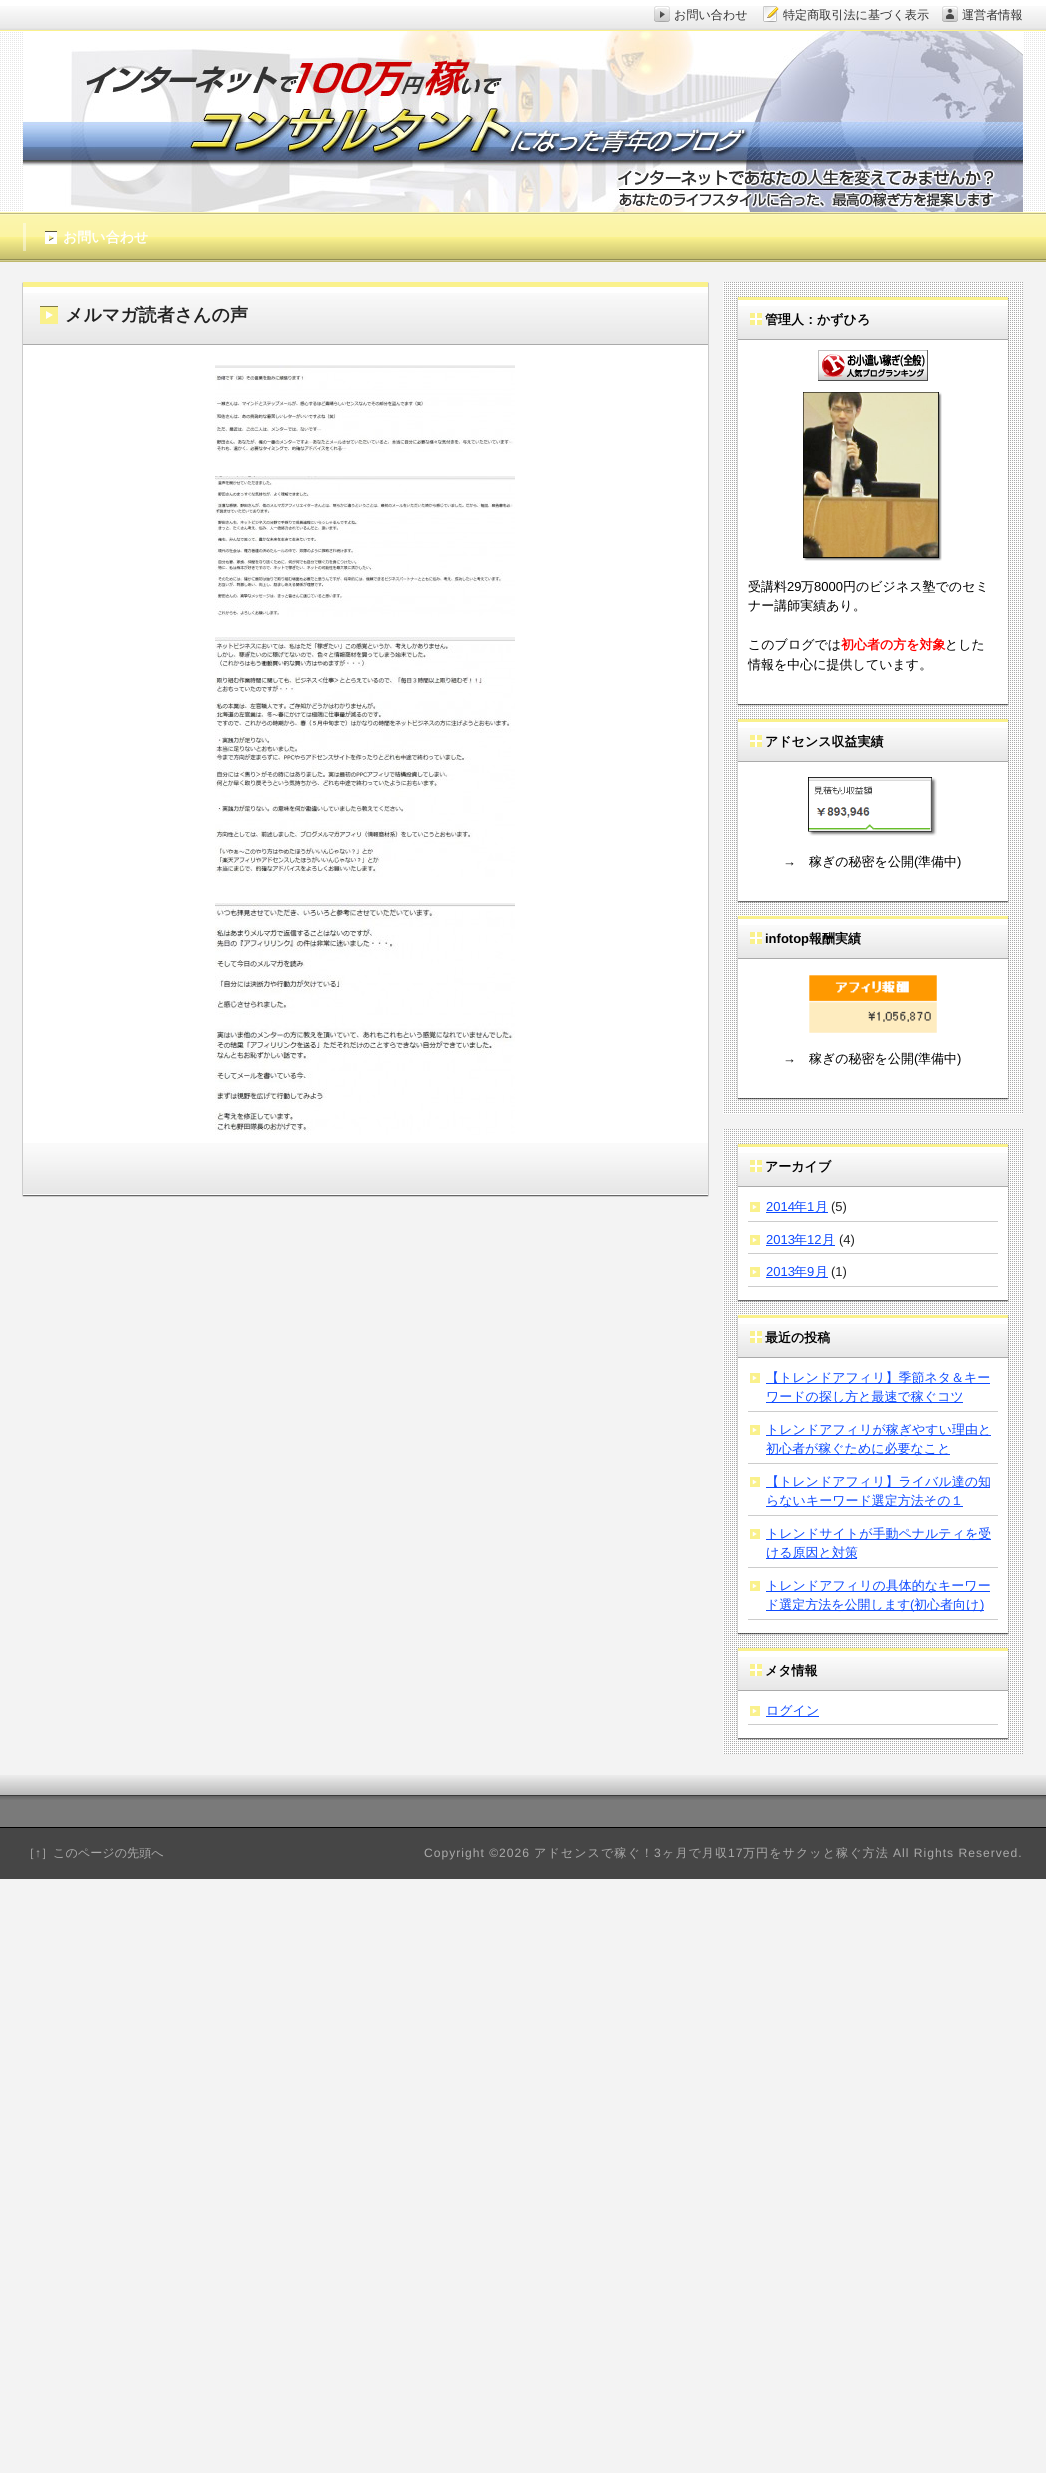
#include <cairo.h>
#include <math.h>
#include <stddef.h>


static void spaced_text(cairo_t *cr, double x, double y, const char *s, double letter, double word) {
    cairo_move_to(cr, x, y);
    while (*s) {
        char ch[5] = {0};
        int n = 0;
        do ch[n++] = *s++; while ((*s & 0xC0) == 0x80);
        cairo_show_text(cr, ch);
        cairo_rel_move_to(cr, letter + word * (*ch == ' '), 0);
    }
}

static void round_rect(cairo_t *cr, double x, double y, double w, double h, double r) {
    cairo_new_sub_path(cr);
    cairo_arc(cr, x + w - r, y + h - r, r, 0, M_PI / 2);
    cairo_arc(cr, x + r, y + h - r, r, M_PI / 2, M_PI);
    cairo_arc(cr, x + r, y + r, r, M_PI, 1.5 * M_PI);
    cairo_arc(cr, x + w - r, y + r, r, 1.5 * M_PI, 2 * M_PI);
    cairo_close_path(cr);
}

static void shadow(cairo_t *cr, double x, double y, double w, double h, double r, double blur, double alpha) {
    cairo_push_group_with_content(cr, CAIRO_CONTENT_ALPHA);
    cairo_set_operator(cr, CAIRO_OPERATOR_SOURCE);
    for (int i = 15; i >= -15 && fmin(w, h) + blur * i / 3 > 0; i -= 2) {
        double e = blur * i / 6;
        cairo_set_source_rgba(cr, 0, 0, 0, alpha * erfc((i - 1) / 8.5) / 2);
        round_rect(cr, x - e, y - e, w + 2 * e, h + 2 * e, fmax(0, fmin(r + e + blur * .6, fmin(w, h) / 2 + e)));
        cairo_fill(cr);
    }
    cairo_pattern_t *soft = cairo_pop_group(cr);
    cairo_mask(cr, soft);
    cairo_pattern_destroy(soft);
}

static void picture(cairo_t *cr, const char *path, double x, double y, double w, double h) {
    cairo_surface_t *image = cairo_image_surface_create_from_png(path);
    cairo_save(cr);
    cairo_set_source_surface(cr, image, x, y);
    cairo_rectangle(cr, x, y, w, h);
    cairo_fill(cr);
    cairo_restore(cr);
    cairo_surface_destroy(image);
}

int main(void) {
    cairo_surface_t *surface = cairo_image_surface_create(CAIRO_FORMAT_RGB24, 1046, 2473);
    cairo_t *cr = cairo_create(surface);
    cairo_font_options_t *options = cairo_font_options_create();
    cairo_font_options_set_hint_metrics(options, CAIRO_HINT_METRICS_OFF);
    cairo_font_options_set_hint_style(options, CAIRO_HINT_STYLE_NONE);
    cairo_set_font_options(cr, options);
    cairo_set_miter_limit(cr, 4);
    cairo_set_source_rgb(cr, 0.953, 0.953, 0.953);
    cairo_paint(cr);
    cairo_set_source_rgb(cr, 1, 1, 1);
    cairo_rectangle(cr, 0, 0, 1046, 6);
    cairo_fill(cr);
    picture(cr, "img1.png", 0, 6, 1046, 24);
    picture(cr, "img2.png", 654, 6, 16, 16);
    cairo_select_font_face(cr, "WenQuanYi Zen Hei Medium", CAIRO_FONT_SLANT_NORMAL, CAIRO_FONT_WEIGHT_NORMAL);
    cairo_set_font_size(cr, 12.1);
    cairo_set_source_rgb(cr, 0.2, 0.2, 0.2);
    cairo_move_to(cr, 674, 19);
    cairo_show_text(cr, "お問い合わせ");
    picture(cr, "img3.png", 763, 6, 16, 16);
    cairo_move_to(cr, 783, 19);
    cairo_show_text(cr, "特定商取引法に基づく表示");
    picture(cr, "img4.png", 942, 6, 16, 16);
    cairo_move_to(cr, 962, 19);
    cairo_show_text(cr, "運営者情報");
    picture(cr, "img5.png", 0, 1775, 1046, 20);
    cairo_set_source_rgb(cr, 1, 1, 1);
    cairo_rectangle(cr, 1045, 31, 1, 181);
    cairo_fill(cr);
    picture(cr, "img6.png", 0, 31, 1045, 181);
    cairo_set_source_rgb(cr, 0.98, 0.945, 0.549);
    cairo_rectangle(cr, 0, 30, 1046, 1);
    cairo_fill(cr);
    picture(cr, "img7.png", 23, 31, 1000, 181);
    cairo_rectangle(cr, 0, 212, 1046, 50);
    cairo_fill(cr);
    picture(cr, "img8.png", 0, 212, 1046, 50);
    cairo_set_source_rgba(cr, 1, 1, 1, 0.44);
    cairo_rectangle(cr, 23, 223, 3, 28);
    cairo_fill(cr);
    picture(cr, "img9.png", 45, 231, 12, 13);
    cairo_select_font_face(cr, "WenQuanYi Zen Hei", CAIRO_FONT_SLANT_NORMAL, CAIRO_FONT_WEIGHT_BOLD);
    cairo_set_font_size(cr, 14);
    cairo_set_source_rgb(cr, 1, 1, 1);
    cairo_move_to(cr, 63, 242);
    cairo_show_text(cr, "お問い合わせ");
    cairo_set_source_rgb(cr, 0, 0, 0);
    shadow(cr, 23, 283, 685, 913, 0, 0.5, 0.66);
    cairo_set_source_rgb(cr, 1, 1, 1);
    cairo_rectangle(cr, 23, 345, 685, 850);
    cairo_fill(cr);
    picture(cr, "img10.png", 23, 1143, 685, 51);
    cairo_rectangle(cr, 23, 287, 685, 6);
    cairo_fill(cr);
    picture(cr, "img11.png", 23, 293, 685, 51);
    cairo_set_source_rgb(cr, 0.98, 0.945, 0.549);
    cairo_rectangle(cr, 23, 282, 685, 5);
    cairo_fill(cr);
    cairo_set_source_rgb(cr, 0.667, 0.667, 0.667);
    cairo_rectangle(cr, 23, 344, 685, 1);
    cairo_fill(cr);
    cairo_set_source_rgb(cr, 0.98, 0.945, 0.549);
    cairo_rectangle(cr, 40, 307, 18, 17);
    cairo_fill(cr);
    picture(cr, "img12.png", 46, 311, 7, 8);
    cairo_set_source_rgb(cr, 0.49, 0.475, 0.275);
    cairo_rectangle(cr, 40, 306, 18, 1);
    cairo_fill(cr);
    cairo_set_font_size(cr, 18);
    cairo_set_source_rgb(cr, 0.133, 0.133, 0.133);
    cairo_move_to(cr, 65, 321);
    cairo_show_text(cr, "メルマガ読者さんの声");
    picture(cr, "img13.png", 215, 365, 300, 88);
    picture(cr, "img14.png", 215, 476, 300, 141);
    picture(cr, "img15.png", 215, 637, 300, 240);
    picture(cr, "img16.png", 215, 903, 300, 232);
    picture(cr, "img17.png", 723, 282, 300, 832);
    cairo_set_source_rgb(cr, 0, 0, 0);
    shadow(cr, 738, 298, 270, 407, 0, 0.5, 0.66);
    cairo_set_source_rgb(cr, 1, 1, 1);
    cairo_rectangle(cr, 738, 300, 270, 404);
    cairo_fill(cr);
    picture(cr, "img18.png", 738, 306, 270, 33);
    cairo_set_source_rgb(cr, 0.98, 0.945, 0.549);
    cairo_rectangle(cr, 738, 297, 270, 3);
    cairo_fill(cr);
    cairo_set_source_rgb(cr, 0.667, 0.667, 0.667);
    cairo_rectangle(cr, 738, 339, 270, 1);
    cairo_fill(cr);
    cairo_set_source_rgb(cr, 0.98, 0.945, 0.549);
    cairo_rectangle(cr, 750, 313, 12, 12);
    cairo_fill(cr);
    picture(cr, "img19.png", 750, 313, 12, 12);
    cairo_set_font_size(cr, 13);
    cairo_set_source_rgb(cr, 0, 0, 0);
    cairo_move_to(cr, 765, 324);
    cairo_show_text(cr, "管理人：かずひろ");
    picture(cr, "img20.png", 818, 350, 110, 31);
    picture(cr, "img21.png", 803, 392, 139, 169);
    cairo_select_font_face(cr, "WenQuanYi Zen Hei Medium", CAIRO_FONT_SLANT_NORMAL, CAIRO_FONT_WEIGHT_NORMAL);
    cairo_move_to(cr, 748, 591);
    cairo_show_text(cr, "受講料");
    cairo_select_font_face(cr, "Liberation Sans", CAIRO_FONT_SLANT_NORMAL, CAIRO_FONT_WEIGHT_NORMAL);
    cairo_move_to(cr, 787, 591);
    cairo_show_text(cr, "29");
    cairo_select_font_face(cr, "WenQuanYi Zen Hei Medium", CAIRO_FONT_SLANT_NORMAL, CAIRO_FONT_WEIGHT_NORMAL);
    cairo_move_to(cr, 801, 591);
    cairo_show_text(cr, "万");
    cairo_select_font_face(cr, "Liberation Sans", CAIRO_FONT_SLANT_NORMAL, CAIRO_FONT_WEIGHT_NORMAL);
    cairo_move_to(cr, 814, 591);
    cairo_show_text(cr, "8000");
    cairo_select_font_face(cr, "WenQuanYi Zen Hei Medium", CAIRO_FONT_SLANT_NORMAL, CAIRO_FONT_WEIGHT_NORMAL);
    cairo_move_to(cr, 843, 591);
    cairo_show_text(cr, "円のビジネス塾でのセミ");
    cairo_move_to(cr, 748, 610);
    cairo_show_text(cr, "ナー講師実績あり。");
    cairo_move_to(cr, 748, 649);
    cairo_show_text(cr, "このブログでは");
    cairo_select_font_face(cr, "WenQuanYi Zen Hei", CAIRO_FONT_SLANT_NORMAL, CAIRO_FONT_WEIGHT_BOLD);
    cairo_set_source_rgb(cr, 1, 0, 0);
    cairo_move_to(cr, 841, 649);
    cairo_show_text(cr, "初心者の方を対象");
    cairo_select_font_face(cr, "WenQuanYi Zen Hei Medium", CAIRO_FONT_SLANT_NORMAL, CAIRO_FONT_WEIGHT_NORMAL);
    cairo_set_source_rgb(cr, 0, 0, 0);
    cairo_move_to(cr, 945, 649);
    cairo_show_text(cr, "とした");
    cairo_move_to(cr, 748, 669);
    cairo_show_text(cr, "情報を中心に提供しています。");
    cairo_set_source_rgb(cr, 0, 0, 0);
    shadow(cr, 738, 720, 270, 182, 0, 0.5, 0.66);
    cairo_set_source_rgb(cr, 1, 1, 1);
    cairo_rectangle(cr, 738, 722, 270, 179);
    cairo_fill(cr);
    picture(cr, "img18.png", 738, 728, 270, 33);
    cairo_set_source_rgb(cr, 0.98, 0.945, 0.549);
    cairo_rectangle(cr, 738, 719, 270, 3);
    cairo_fill(cr);
    cairo_set_source_rgb(cr, 0.667, 0.667, 0.667);
    cairo_rectangle(cr, 738, 761, 270, 1);
    cairo_fill(cr);
    cairo_set_source_rgb(cr, 0.98, 0.945, 0.549);
    cairo_rectangle(cr, 750, 735, 12, 12);
    cairo_fill(cr);
    picture(cr, "img19.png", 750, 735, 12, 12);
    cairo_select_font_face(cr, "WenQuanYi Zen Hei", CAIRO_FONT_SLANT_NORMAL, CAIRO_FONT_WEIGHT_BOLD);
    cairo_set_source_rgb(cr, 0, 0, 0);
    cairo_move_to(cr, 765, 746);
    cairo_show_text(cr, "アドセンス収益実績");
    picture(cr, "img22.png", 808, 777, 129, 59);
    cairo_select_font_face(cr, "Liberation Sans", CAIRO_FONT_SLANT_NORMAL, CAIRO_FONT_WEIGHT_NORMAL);
    cairo_move_to(cr, 783, 866);
    cairo_show_text(cr, "→");
    cairo_select_font_face(cr, "WenQuanYi Zen Hei Medium", CAIRO_FONT_SLANT_NORMAL, CAIRO_FONT_WEIGHT_NORMAL);
    cairo_move_to(cr, 809, 866);
    cairo_show_text(cr, "稼ぎの秘密を公開");
    cairo_select_font_face(cr, "Liberation Sans", CAIRO_FONT_SLANT_NORMAL, CAIRO_FONT_WEIGHT_NORMAL);
    cairo_move_to(cr, 914, 866);
    cairo_show_text(cr, "(");
    cairo_select_font_face(cr, "WenQuanYi Zen Hei Medium", CAIRO_FONT_SLANT_NORMAL, CAIRO_FONT_WEIGHT_NORMAL);
    cairo_move_to(cr, 918, 866);
    cairo_show_text(cr, "準備中");
    cairo_select_font_face(cr, "Liberation Sans", CAIRO_FONT_SLANT_NORMAL, CAIRO_FONT_WEIGHT_NORMAL);
    cairo_move_to(cr, 957, 866);
    cairo_show_text(cr, ")");
    cairo_set_source_rgb(cr, 0, 0, 0);
    shadow(cr, 738, 917, 270, 182, 0, 0.5, 0.66);
    cairo_set_source_rgb(cr, 1, 1, 1);
    cairo_rectangle(cr, 738, 919, 270, 179);
    cairo_fill(cr);
    picture(cr, "img18.png", 738, 925, 270, 33);
    cairo_set_source_rgb(cr, 0.98, 0.945, 0.549);
    cairo_rectangle(cr, 738, 916, 270, 3);
    cairo_fill(cr);
    cairo_set_source_rgb(cr, 0.667, 0.667, 0.667);
    cairo_rectangle(cr, 738, 958, 270, 1);
    cairo_fill(cr);
    cairo_set_source_rgb(cr, 0.98, 0.945, 0.549);
    cairo_rectangle(cr, 750, 932, 12, 12);
    cairo_fill(cr);
    picture(cr, "img19.png", 750, 932, 12, 12);
    cairo_select_font_face(cr, "Liberation Sans", CAIRO_FONT_SLANT_NORMAL, CAIRO_FONT_WEIGHT_BOLD);
    cairo_set_source_rgb(cr, 0, 0, 0);
    cairo_move_to(cr, 765, 943);
    cairo_show_text(cr, "infotop");
    cairo_select_font_face(cr, "WenQuanYi Zen Hei", CAIRO_FONT_SLANT_NORMAL, CAIRO_FONT_WEIGHT_BOLD);
    cairo_move_to(cr, 809, 943);
    cairo_show_text(cr, "報酬実績");
    picture(cr, "img23.png", 809, 975, 128, 58);
    cairo_select_font_face(cr, "Liberation Sans", CAIRO_FONT_SLANT_NORMAL, CAIRO_FONT_WEIGHT_NORMAL);
    cairo_move_to(cr, 783, 1063);
    cairo_show_text(cr, "→");
    cairo_select_font_face(cr, "WenQuanYi Zen Hei Medium", CAIRO_FONT_SLANT_NORMAL, CAIRO_FONT_WEIGHT_NORMAL);
    cairo_move_to(cr, 809, 1063);
    cairo_show_text(cr, "稼ぎの秘密を公開");
    cairo_select_font_face(cr, "Liberation Sans", CAIRO_FONT_SLANT_NORMAL, CAIRO_FONT_WEIGHT_NORMAL);
    cairo_move_to(cr, 914, 1063);
    cairo_show_text(cr, "(");
    cairo_select_font_face(cr, "WenQuanYi Zen Hei Medium", CAIRO_FONT_SLANT_NORMAL, CAIRO_FONT_WEIGHT_NORMAL);
    cairo_move_to(cr, 918, 1063);
    cairo_show_text(cr, "準備中");
    cairo_select_font_face(cr, "Liberation Sans", CAIRO_FONT_SLANT_NORMAL, CAIRO_FONT_WEIGHT_NORMAL);
    cairo_move_to(cr, 957, 1063);
    cairo_show_text(cr, ")");
    picture(cr, "img24.png", 723, 1129, 300, 625);
    cairo_set_source_rgb(cr, 0, 0, 0);
    shadow(cr, 738, 1145, 270, 156, 0, 0.5, 0.66);
    cairo_set_source_rgb(cr, 1, 1, 1);
    cairo_rectangle(cr, 738, 1147, 270, 153);
    cairo_fill(cr);
    picture(cr, "img18.png", 738, 1153, 270, 33);
    cairo_set_source_rgb(cr, 0.98, 0.945, 0.549);
    cairo_rectangle(cr, 738, 1144, 270, 3);
    cairo_fill(cr);
    cairo_set_source_rgb(cr, 0.667, 0.667, 0.667);
    cairo_rectangle(cr, 738, 1186, 270, 1);
    cairo_fill(cr);
    cairo_set_source_rgb(cr, 0.98, 0.945, 0.549);
    cairo_rectangle(cr, 750, 1160, 12, 12);
    cairo_fill(cr);
    picture(cr, "img19.png", 750, 1160, 12, 12);
    cairo_select_font_face(cr, "WenQuanYi Zen Hei", CAIRO_FONT_SLANT_NORMAL, CAIRO_FONT_WEIGHT_BOLD);
    cairo_set_source_rgb(cr, 0, 0, 0);
    cairo_move_to(cr, 765, 1171);
    cairo_show_text(cr, "アーカイブ");
    cairo_set_source_rgb(cr, 0.8, 0.8, 0.8);
    cairo_rectangle(cr, 748, 1221, 250, 1);
    cairo_fill(cr);
    cairo_set_source_rgb(cr, 0.98, 0.945, 0.549);
    cairo_rectangle(cr, 750, 1202, 10, 10);
    cairo_fill(cr);
    picture(cr, "img25.png", 752, 1204, 5, 6);
    cairo_select_font_face(cr, "Liberation Sans", CAIRO_FONT_SLANT_NORMAL, CAIRO_FONT_WEIGHT_NORMAL);
    cairo_set_source_rgb(cr, 0.059, 0.294, 1);
    cairo_move_to(cr, 766, 1211);
    cairo_show_text(cr, "2014");
    cairo_rectangle(cr, 766, 1212, 62, 1);
    cairo_fill(cr);
    cairo_select_font_face(cr, "WenQuanYi Zen Hei Medium", CAIRO_FONT_SLANT_NORMAL, CAIRO_FONT_WEIGHT_NORMAL);
    cairo_move_to(cr, 794, 1211);
    cairo_show_text(cr, "年");
    cairo_select_font_face(cr, "Liberation Sans", CAIRO_FONT_SLANT_NORMAL, CAIRO_FONT_WEIGHT_NORMAL);
    cairo_move_to(cr, 807, 1211);
    cairo_show_text(cr, "1");
    cairo_select_font_face(cr, "WenQuanYi Zen Hei Medium", CAIRO_FONT_SLANT_NORMAL, CAIRO_FONT_WEIGHT_NORMAL);
    cairo_move_to(cr, 815, 1211);
    cairo_show_text(cr, "月");
    cairo_select_font_face(cr, "Liberation Sans", CAIRO_FONT_SLANT_NORMAL, CAIRO_FONT_WEIGHT_NORMAL);
    cairo_set_source_rgb(cr, 0.133, 0.133, 0.133);
    cairo_move_to(cr, 831, 1211);
    cairo_show_text(cr, "(5)");
    cairo_set_source_rgb(cr, 0.8, 0.8, 0.8);
    cairo_rectangle(cr, 748, 1253, 250, 1);
    cairo_fill(cr);
    cairo_set_source_rgb(cr, 0.98, 0.945, 0.549);
    cairo_rectangle(cr, 750, 1235, 10, 10);
    cairo_fill(cr);
    picture(cr, "img25.png", 752, 1237, 5, 6);
    cairo_set_source_rgb(cr, 0.059, 0.294, 1);
    cairo_move_to(cr, 766, 1244);
    cairo_show_text(cr, "2013");
    cairo_rectangle(cr, 766, 1245, 69, 1);
    cairo_fill(cr);
    cairo_select_font_face(cr, "WenQuanYi Zen Hei Medium", CAIRO_FONT_SLANT_NORMAL, CAIRO_FONT_WEIGHT_NORMAL);
    cairo_move_to(cr, 794, 1244);
    cairo_show_text(cr, "年");
    cairo_select_font_face(cr, "Liberation Sans", CAIRO_FONT_SLANT_NORMAL, CAIRO_FONT_WEIGHT_NORMAL);
    cairo_move_to(cr, 807, 1244);
    cairo_show_text(cr, "12");
    cairo_select_font_face(cr, "WenQuanYi Zen Hei Medium", CAIRO_FONT_SLANT_NORMAL, CAIRO_FONT_WEIGHT_NORMAL);
    cairo_move_to(cr, 822, 1244);
    cairo_show_text(cr, "月");
    cairo_select_font_face(cr, "Liberation Sans", CAIRO_FONT_SLANT_NORMAL, CAIRO_FONT_WEIGHT_NORMAL);
    cairo_set_source_rgb(cr, 0.133, 0.133, 0.133);
    cairo_move_to(cr, 839, 1244);
    cairo_show_text(cr, "(4)");
    cairo_set_source_rgb(cr, 0.8, 0.8, 0.8);
    cairo_rectangle(cr, 748, 1286, 250, 1);
    cairo_fill(cr);
    cairo_set_source_rgb(cr, 0.98, 0.945, 0.549);
    cairo_rectangle(cr, 750, 1267, 10, 10);
    cairo_fill(cr);
    picture(cr, "img25.png", 752, 1269, 5, 6);
    cairo_set_source_rgb(cr, 0.059, 0.294, 1);
    cairo_move_to(cr, 766, 1276);
    cairo_show_text(cr, "2013");
    cairo_rectangle(cr, 766, 1277, 62, 1);
    cairo_fill(cr);
    cairo_select_font_face(cr, "WenQuanYi Zen Hei Medium", CAIRO_FONT_SLANT_NORMAL, CAIRO_FONT_WEIGHT_NORMAL);
    cairo_move_to(cr, 794, 1276);
    cairo_show_text(cr, "年");
    cairo_select_font_face(cr, "Liberation Sans", CAIRO_FONT_SLANT_NORMAL, CAIRO_FONT_WEIGHT_NORMAL);
    cairo_move_to(cr, 807, 1276);
    cairo_show_text(cr, "9");
    cairo_select_font_face(cr, "WenQuanYi Zen Hei Medium", CAIRO_FONT_SLANT_NORMAL, CAIRO_FONT_WEIGHT_NORMAL);
    cairo_move_to(cr, 815, 1276);
    cairo_show_text(cr, "月");
    cairo_select_font_face(cr, "Liberation Sans", CAIRO_FONT_SLANT_NORMAL, CAIRO_FONT_WEIGHT_NORMAL);
    cairo_set_source_rgb(cr, 0.133, 0.133, 0.133);
    cairo_move_to(cr, 831, 1276);
    cairo_show_text(cr, "(1)");
    cairo_set_source_rgb(cr, 0, 0, 0);
    shadow(cr, 738, 1316, 270, 318, 0, 0.5, 0.66);
    cairo_set_source_rgb(cr, 1, 1, 1);
    cairo_rectangle(cr, 738, 1318, 270, 315);
    cairo_fill(cr);
    picture(cr, "img18.png", 738, 1324, 270, 33);
    cairo_set_source_rgb(cr, 0.98, 0.945, 0.549);
    cairo_rectangle(cr, 738, 1315, 270, 3);
    cairo_fill(cr);
    cairo_set_source_rgb(cr, 0.667, 0.667, 0.667);
    cairo_rectangle(cr, 738, 1357, 270, 1);
    cairo_fill(cr);
    cairo_set_source_rgb(cr, 0.98, 0.945, 0.549);
    cairo_rectangle(cr, 750, 1331, 12, 12);
    cairo_fill(cr);
    picture(cr, "img19.png", 750, 1331, 12, 12);
    cairo_select_font_face(cr, "WenQuanYi Zen Hei", CAIRO_FONT_SLANT_NORMAL, CAIRO_FONT_WEIGHT_BOLD);
    cairo_set_source_rgb(cr, 0, 0, 0);
    cairo_move_to(cr, 765, 1342);
    cairo_show_text(cr, "最近の投稿");
    cairo_set_source_rgb(cr, 0.8, 0.8, 0.8);
    cairo_rectangle(cr, 748, 1411, 250, 1);
    cairo_fill(cr);
    cairo_set_source_rgb(cr, 0.98, 0.945, 0.549);
    cairo_rectangle(cr, 750, 1373, 10, 10);
    cairo_fill(cr);
    picture(cr, "img25.png", 752, 1375, 5, 6);
    cairo_set_source_rgb(cr, 0.059, 0.294, 1);
    cairo_rectangle(cr, 766, 1383, 224, 1);
    cairo_fill(cr);
    cairo_select_font_face(cr, "WenQuanYi Zen Hei Medium", CAIRO_FONT_SLANT_NORMAL, CAIRO_FONT_WEIGHT_NORMAL);
    cairo_move_to(cr, 766, 1382);
    cairo_show_text(cr, "【トレンドアフィリ】季節ネタ＆キー");
    cairo_rectangle(cr, 766, 1402, 197, 1);
    cairo_fill(cr);
    cairo_move_to(cr, 766, 1401);
    cairo_show_text(cr, "ワードの探し方と最速で稼ぐコツ");
    cairo_set_source_rgb(cr, 0.8, 0.8, 0.8);
    cairo_rectangle(cr, 748, 1463, 250, 1);
    cairo_fill(cr);
    cairo_set_source_rgb(cr, 0.98, 0.945, 0.549);
    cairo_rectangle(cr, 750, 1425, 10, 10);
    cairo_fill(cr);
    picture(cr, "img25.png", 752, 1427, 5, 6);
    cairo_set_source_rgb(cr, 0.059, 0.294, 1);
    cairo_rectangle(cr, 766, 1435, 225, 1);
    cairo_fill(cr);
    cairo_move_to(cr, 766, 1434);
    cairo_show_text(cr, "トレンドアフィリが稼ぎやすい理由と");
    cairo_rectangle(cr, 766, 1454, 184, 1);
    cairo_fill(cr);
    cairo_move_to(cr, 766, 1453);
    cairo_show_text(cr, "初心者が稼ぐために必要なこと");
    cairo_set_source_rgb(cr, 0.8, 0.8, 0.8);
    cairo_rectangle(cr, 748, 1515, 250, 1);
    cairo_fill(cr);
    cairo_set_source_rgb(cr, 0.98, 0.945, 0.549);
    cairo_rectangle(cr, 750, 1477, 10, 10);
    cairo_fill(cr);
    picture(cr, "img25.png", 752, 1479, 5, 6);
    cairo_set_source_rgb(cr, 0.059, 0.294, 1);
    cairo_rectangle(cr, 766, 1487, 224, 1);
    cairo_fill(cr);
    cairo_move_to(cr, 766, 1486);
    cairo_show_text(cr, "【トレンドアフィリ】ライバル達の知");
    cairo_rectangle(cr, 766, 1506, 197, 1);
    cairo_fill(cr);
    cairo_move_to(cr, 766, 1505);
    cairo_show_text(cr, "らないキーワード選定方法その１");
    cairo_set_source_rgb(cr, 0.8, 0.8, 0.8);
    cairo_rectangle(cr, 748, 1567, 250, 1);
    cairo_fill(cr);
    cairo_set_source_rgb(cr, 0.98, 0.945, 0.549);
    cairo_rectangle(cr, 750, 1529, 10, 10);
    cairo_fill(cr);
    picture(cr, "img25.png", 752, 1531, 5, 6);
    cairo_set_source_rgb(cr, 0.059, 0.294, 1);
    cairo_rectangle(cr, 766, 1539, 225, 1);
    cairo_fill(cr);
    cairo_move_to(cr, 766, 1538);
    cairo_show_text(cr, "トレンドサイトが手動ペナルティを受");
    cairo_rectangle(cr, 766, 1558, 91, 1);
    cairo_fill(cr);
    cairo_move_to(cr, 766, 1557);
    cairo_show_text(cr, "ける原因と対策");
    cairo_set_source_rgb(cr, 0.8, 0.8, 0.8);
    cairo_rectangle(cr, 748, 1619, 250, 1);
    cairo_fill(cr);
    cairo_set_source_rgb(cr, 0.98, 0.945, 0.549);
    cairo_rectangle(cr, 750, 1581, 10, 10);
    cairo_fill(cr);
    picture(cr, "img25.png", 752, 1583, 5, 6);
    cairo_set_source_rgb(cr, 0.059, 0.294, 1);
    cairo_rectangle(cr, 766, 1591, 224, 1);
    cairo_fill(cr);
    cairo_move_to(cr, 766, 1590);
    cairo_show_text(cr, "トレンドアフィリの具体的なキーワー");
    cairo_rectangle(cr, 766, 1610, 218, 1);
    cairo_fill(cr);
    cairo_move_to(cr, 766, 1609);
    cairo_show_text(cr, "ド選定方法を公開します");
    cairo_select_font_face(cr, "Liberation Sans", CAIRO_FONT_SLANT_NORMAL, CAIRO_FONT_WEIGHT_NORMAL);
    cairo_move_to(cr, 910, 1609);
    cairo_show_text(cr, "(");
    cairo_select_font_face(cr, "WenQuanYi Zen Hei Medium", CAIRO_FONT_SLANT_NORMAL, CAIRO_FONT_WEIGHT_NORMAL);
    cairo_move_to(cr, 914, 1609);
    cairo_show_text(cr, "初心者向け");
    cairo_select_font_face(cr, "Liberation Sans", CAIRO_FONT_SLANT_NORMAL, CAIRO_FONT_WEIGHT_NORMAL);
    cairo_move_to(cr, 980, 1609);
    cairo_show_text(cr, ")");
    cairo_set_source_rgb(cr, 0, 0, 0);
    shadow(cr, 738, 1649, 270, 90, 0, 0.5, 0.66);
    cairo_set_source_rgb(cr, 1, 1, 1);
    cairo_rectangle(cr, 738, 1651, 270, 87);
    cairo_fill(cr);
    picture(cr, "img18.png", 738, 1657, 270, 33);
    cairo_set_source_rgb(cr, 0.98, 0.945, 0.549);
    cairo_rectangle(cr, 738, 1648, 270, 3);
    cairo_fill(cr);
    cairo_set_source_rgb(cr, 0.667, 0.667, 0.667);
    cairo_rectangle(cr, 738, 1690, 270, 1);
    cairo_fill(cr);
    cairo_set_source_rgb(cr, 0.98, 0.945, 0.549);
    cairo_rectangle(cr, 750, 1664, 12, 12);
    cairo_fill(cr);
    picture(cr, "img19.png", 750, 1664, 12, 12);
    cairo_select_font_face(cr, "WenQuanYi Zen Hei", CAIRO_FONT_SLANT_NORMAL, CAIRO_FONT_WEIGHT_BOLD);
    cairo_set_source_rgb(cr, 0, 0, 0);
    cairo_move_to(cr, 765, 1675);
    cairo_show_text(cr, "メタ情報");
    cairo_set_source_rgb(cr, 0.8, 0.8, 0.8);
    cairo_rectangle(cr, 748, 1724, 250, 1);
    cairo_fill(cr);
    cairo_set_source_rgb(cr, 0.98, 0.945, 0.549);
    cairo_rectangle(cr, 750, 1706, 10, 10);
    cairo_fill(cr);
    picture(cr, "img25.png", 752, 1708, 5, 6);
    cairo_set_source_rgb(cr, 0.059, 0.294, 1);
    cairo_rectangle(cr, 766, 1716, 53, 1);
    cairo_fill(cr);
    cairo_select_font_face(cr, "WenQuanYi Zen Hei Medium", CAIRO_FONT_SLANT_NORMAL, CAIRO_FONT_WEIGHT_NORMAL);
    cairo_move_to(cr, 766, 1715);
    cairo_show_text(cr, "ログイン");
    cairo_set_source_rgb(cr, 0.478, 0.478, 0.478);
    cairo_rectangle(cr, 0, 1795, 1046, 32);
    cairo_fill(cr);
    picture(cr, "img26.png", 0, 1795, 1046, 5);
    cairo_set_source_rgb(cr, 0.275, 0.275, 0.275);
    cairo_rectangle(cr, 0, 1828, 1046, 51);
    cairo_fill(cr);
    cairo_set_source_rgb(cr, 0, 0, 0);
    cairo_rectangle(cr, 0, 1827, 1046, 1);
    cairo_fill(cr);
    cairo_set_font_size(cr, 12.1);
    cairo_set_source_rgb(cr, 0.667, 0.667, 0.667);
    cairo_move_to(cr, 23, 1857);
    cairo_show_text(cr, "［");
    cairo_select_font_face(cr, "Liberation Sans", CAIRO_FONT_SLANT_NORMAL, CAIRO_FONT_WEIGHT_NORMAL);
    cairo_move_to(cr, 35, 1857);
    cairo_show_text(cr, "↑");
    cairo_select_font_face(cr, "WenQuanYi Zen Hei Medium", CAIRO_FONT_SLANT_NORMAL, CAIRO_FONT_WEIGHT_NORMAL);
    cairo_move_to(cr, 41, 1857);
    cairo_show_text(cr, "］このページの先頭へ");
    cairo_select_font_face(cr, "Liberation Sans", CAIRO_FONT_SLANT_NORMAL, CAIRO_FONT_WEIGHT_NORMAL);
    spaced_text(cr, 424, 1857, "Copyright ©2026", 1, 0);
    cairo_select_font_face(cr, "WenQuanYi Zen Hei Medium", CAIRO_FONT_SLANT_NORMAL, CAIRO_FONT_WEIGHT_NORMAL);
    spaced_text(cr, 534, 1857, "アドセンスで稼ぐ！", 1, 0);
    cairo_select_font_face(cr, "Liberation Sans", CAIRO_FONT_SLANT_NORMAL, CAIRO_FONT_WEIGHT_NORMAL);
    spaced_text(cr, 654, 1857, "3", 1, 0);
    cairo_select_font_face(cr, "WenQuanYi Zen Hei Medium", CAIRO_FONT_SLANT_NORMAL, CAIRO_FONT_WEIGHT_NORMAL);
    spaced_text(cr, 662, 1857, "ヶ月で月収", 1, 0);
    cairo_select_font_face(cr, "Liberation Sans", CAIRO_FONT_SLANT_NORMAL, CAIRO_FONT_WEIGHT_NORMAL);
    spaced_text(cr, 728, 1857, "17", 1, 0);
    cairo_select_font_face(cr, "WenQuanYi Zen Hei Medium", CAIRO_FONT_SLANT_NORMAL, CAIRO_FONT_WEIGHT_NORMAL);
    spaced_text(cr, 743, 1857, "万円をサクッと稼ぐ方法", 1, 0);
    cairo_select_font_face(cr, "Liberation Sans", CAIRO_FONT_SLANT_NORMAL, CAIRO_FONT_WEIGHT_NORMAL);
    spaced_text(cr, 893, 1857, "All Rights Reserved.", 1, 0);
    cairo_surface_write_to_png(surface, "page.png");
    cairo_font_options_destroy(options);
    cairo_destroy(cr);
    cairo_surface_destroy(surface);
    return 0;
}
